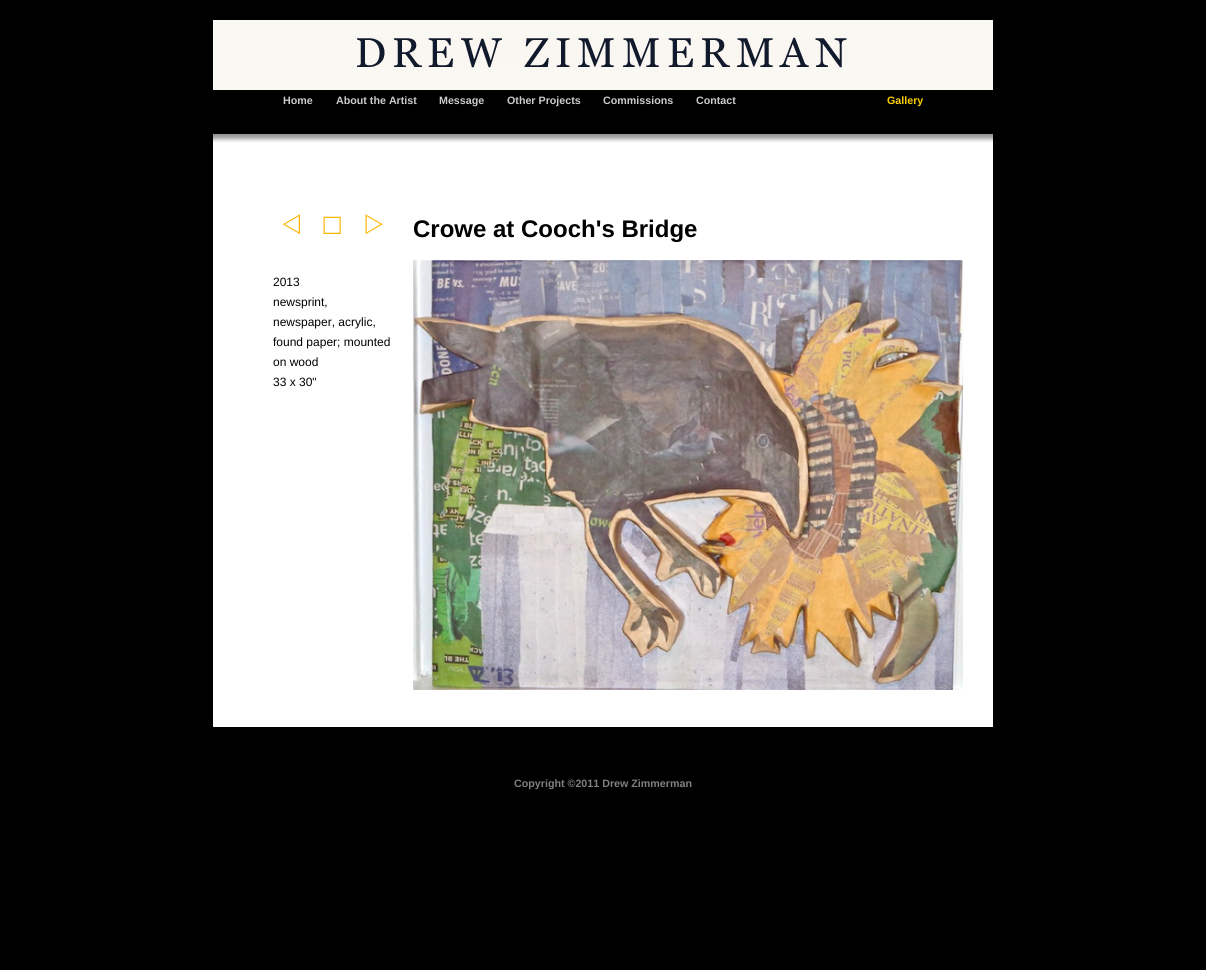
#include <cairo.h>
#include <math.h>
#include <stddef.h>


static void picture(cairo_t *cr, const char *path, double x, double y, double w, double h) {
    cairo_surface_t *image = cairo_image_surface_create_from_png(path);
    cairo_save(cr);
    cairo_set_source_surface(cr, image, x, y);
    cairo_rectangle(cr, x, y, w, h);
    cairo_fill(cr);
    cairo_restore(cr);
    cairo_surface_destroy(image);
}

int main(void) {
    cairo_surface_t *surface = cairo_image_surface_create(CAIRO_FORMAT_RGB24, 1206, 970);
    cairo_t *cr = cairo_create(surface);
    cairo_font_options_t *options = cairo_font_options_create();
    cairo_font_options_set_hint_metrics(options, CAIRO_HINT_METRICS_OFF);
    cairo_font_options_set_hint_style(options, CAIRO_HINT_STYLE_NONE);
    cairo_set_font_options(cr, options);
    cairo_set_miter_limit(cr, 4);
    cairo_set_source_rgb(cr, 0, 0, 0);
    cairo_paint(cr);
    cairo_set_source_rgb(cr, 1, 1, 1);
    cairo_rectangle(cr, 213, 143, 780, 584);
    cairo_fill(cr);
    cairo_set_source_rgb(cr, 0.98, 0.969, 0.949);
    cairo_rectangle(cr, 213, 20, 780, 70);
    cairo_fill(cr);
    picture(cr, "img1.png", 357, 37, 490, 31);
    cairo_select_font_face(cr, "Liberation Sans", CAIRO_FONT_SLANT_NORMAL, CAIRO_FONT_WEIGHT_BOLD);
    cairo_set_font_size(cr, 10.7);
    cairo_set_source_rgb(cr, 0.8, 0.792, 0.804);
    cairo_move_to(cr, 283, 104);
    cairo_show_text(cr, "Home");
    cairo_move_to(cr, 336, 104);
    cairo_show_text(cr, "About the Artist");
    cairo_move_to(cr, 439, 104);
    cairo_show_text(cr, "Message");
    cairo_move_to(cr, 507, 104);
    cairo_show_text(cr, "Other Projects");
    cairo_move_to(cr, 603, 104);
    cairo_show_text(cr, "Commissions");
    cairo_move_to(cr, 696, 104);
    cairo_show_text(cr, "Contact");
    cairo_set_source_rgb(cr, 0.996, 0.812, 0.02);
    cairo_move_to(cr, 887, 104);
    cairo_show_text(cr, "Gallery");
    picture(cr, "img2.png", 213, 134, 780, 9);
    picture(cr, "img3.png", 283, 214, 17, 20);
    picture(cr, "img4.png", 323, 216, 18, 18);
    picture(cr, "img5.png", 365, 214, 18, 20);
    cairo_set_font_size(cr, 24);
    cairo_set_source_rgb(cr, 0, 0, 0);
    cairo_move_to(cr, 413, 237);
    cairo_show_text(cr, "Crowe at Cooch's Bridge");
    cairo_select_font_face(cr, "Liberation Sans", CAIRO_FONT_SLANT_NORMAL, CAIRO_FONT_WEIGHT_NORMAL);
    cairo_set_font_size(cr, 12);
    cairo_move_to(cr, 273, 286);
    cairo_show_text(cr, "2013");
    cairo_move_to(cr, 273, 306);
    cairo_show_text(cr, "newsprint,");
    cairo_move_to(cr, 273, 326);
    cairo_show_text(cr, "newspaper, acrylic,");
    cairo_move_to(cr, 273, 346);
    cairo_show_text(cr, "found paper; mounted");
    cairo_move_to(cr, 273, 366);
    cairo_show_text(cr, "on wood");
    cairo_move_to(cr, 273, 386);
    cairo_show_text(cr, "33 x 30\"");
    picture(cr, "img6.png", 413, 260, 550, 430);
    cairo_select_font_face(cr, "Liberation Sans", CAIRO_FONT_SLANT_NORMAL, CAIRO_FONT_WEIGHT_BOLD);
    cairo_set_font_size(cr, 10.7);
    cairo_set_source_rgb(cr, 0.502, 0.502, 0.502);
    cairo_move_to(cr, 514, 787);
    cairo_show_text(cr, "Copyright ©2011 Drew Zimmerman");
    cairo_surface_write_to_png(surface, "page.png");
    cairo_font_options_destroy(options);
    cairo_destroy(cr);
    cairo_surface_destroy(surface);
    return 0;
}
